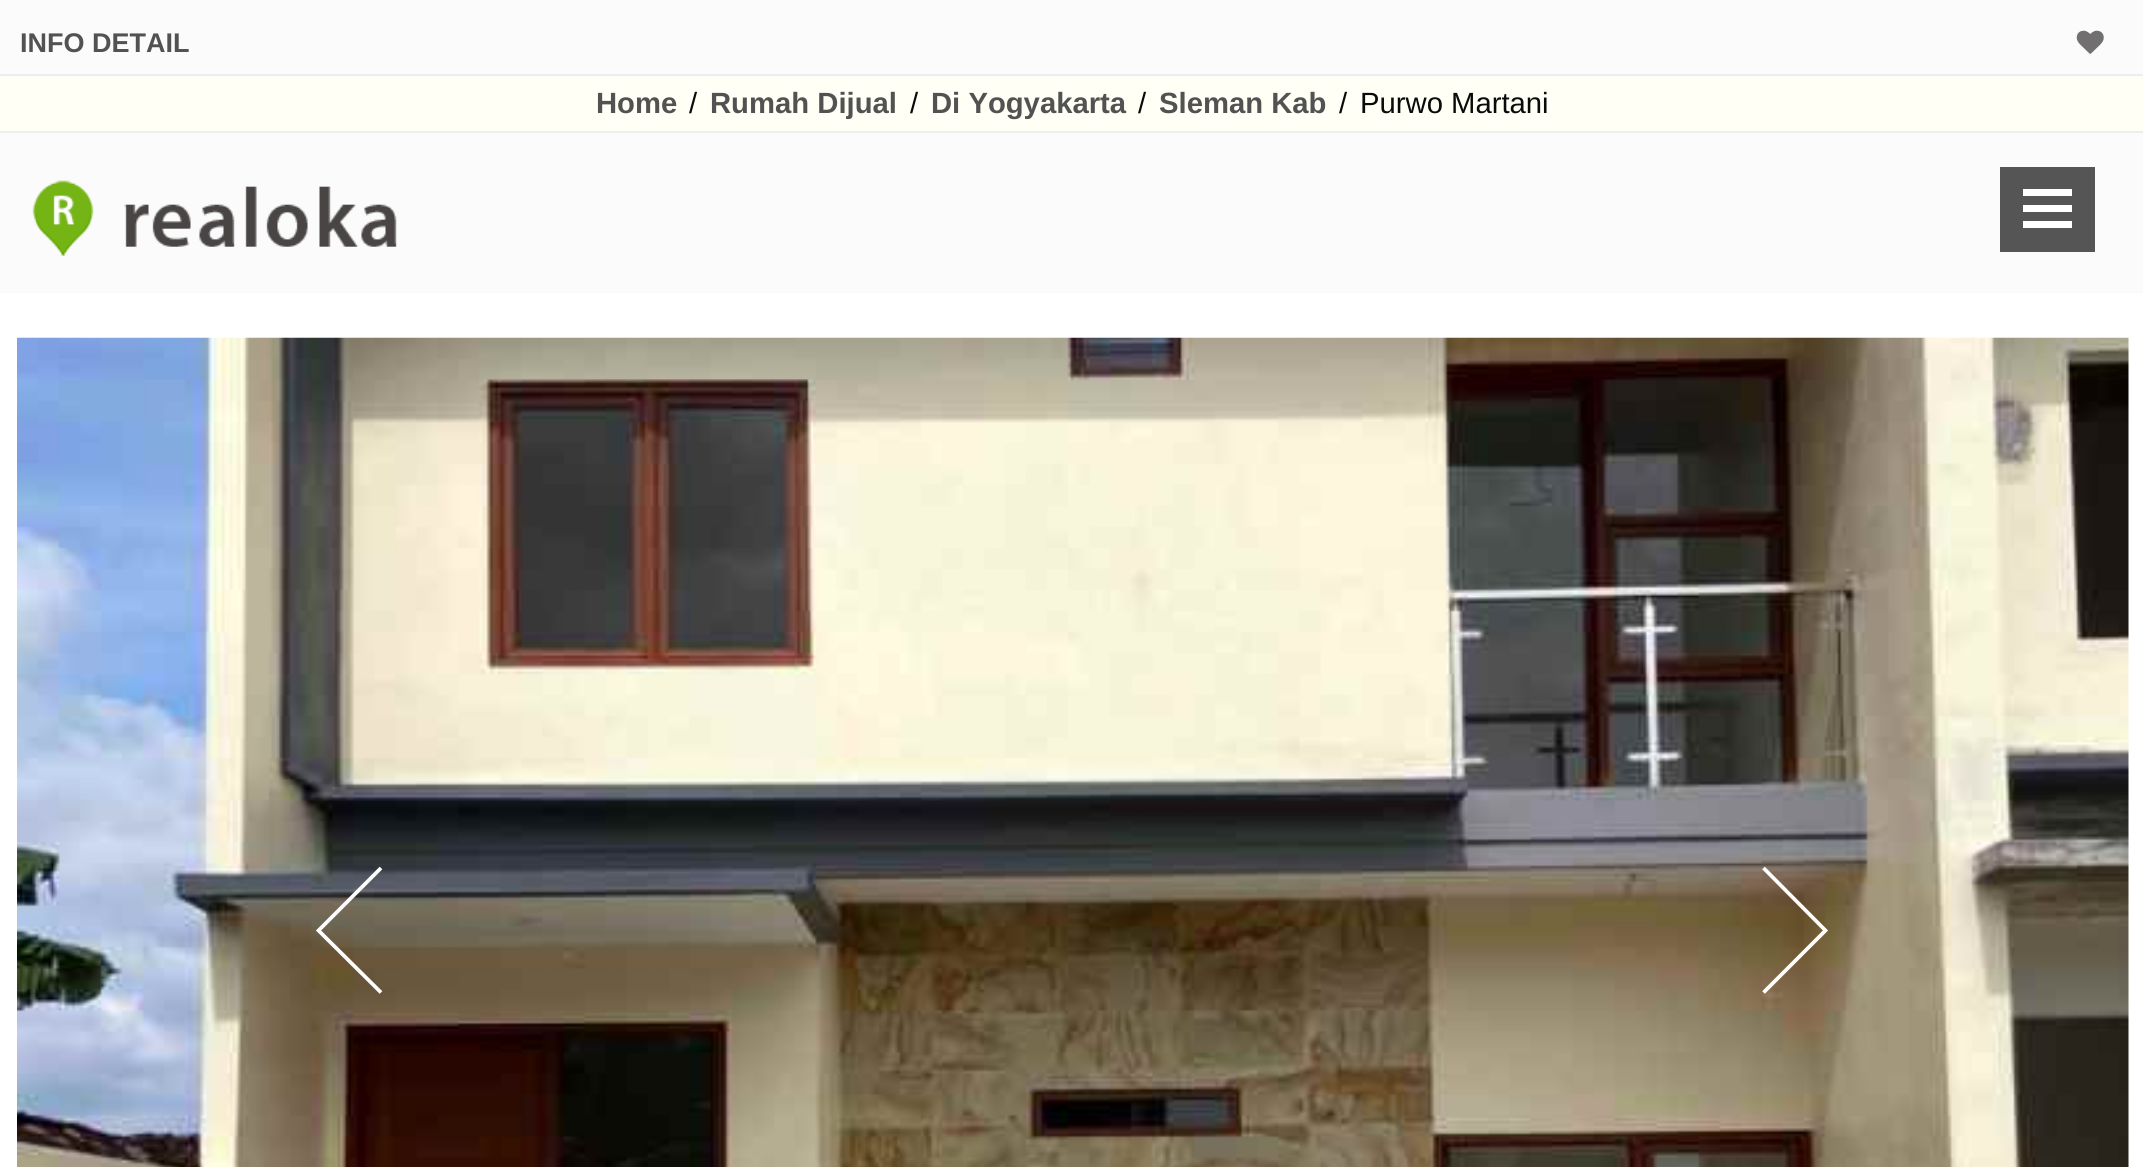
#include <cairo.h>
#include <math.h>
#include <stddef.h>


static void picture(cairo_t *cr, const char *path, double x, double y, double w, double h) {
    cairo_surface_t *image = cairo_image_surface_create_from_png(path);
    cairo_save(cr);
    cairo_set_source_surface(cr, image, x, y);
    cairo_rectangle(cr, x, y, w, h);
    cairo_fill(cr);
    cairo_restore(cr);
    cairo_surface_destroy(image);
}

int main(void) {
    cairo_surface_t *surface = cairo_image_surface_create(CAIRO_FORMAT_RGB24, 2143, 1167);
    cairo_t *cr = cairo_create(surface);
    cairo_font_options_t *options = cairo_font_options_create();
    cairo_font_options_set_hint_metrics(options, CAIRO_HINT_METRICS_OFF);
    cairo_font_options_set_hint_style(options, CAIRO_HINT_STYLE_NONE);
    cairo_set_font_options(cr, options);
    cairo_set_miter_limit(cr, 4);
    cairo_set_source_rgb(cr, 1, 1, 1);
    cairo_paint(cr);
    cairo_set_source_rgb(cr, 0.984, 0.984, 0.988);
    cairo_rectangle(cr, 0, 0, 2143, 77);
    cairo_fill(cr);
    cairo_set_source_rgb(cr, 0.933, 0.933, 0.933);
    cairo_rectangle(cr, 0, 74, 2143, 2);
    cairo_fill(cr);
    cairo_select_font_face(cr, "Liberation Sans", CAIRO_FONT_SLANT_NORMAL, CAIRO_FONT_WEIGHT_BOLD);
    cairo_set_font_size(cr, 27);
    cairo_set_source_rgb(cr, 0.322, 0.322, 0.322);
    cairo_move_to(cr, 20, 52);
    cairo_show_text(cr, "INFO DETAIL");
    picture(cr, "img1.png", 2076, 30, 28, 24);
    cairo_set_source_rgb(cr, 1, 1, 0.961);
    cairo_rectangle(cr, 0, 77, 2143, 54);
    cairo_fill(cr);
    cairo_set_source_rgb(cr, 0.933, 0.933, 0.933);
    cairo_rectangle(cr, 0, 131, 2143, 2);
    cairo_fill(cr);
    cairo_set_font_size(cr, 29.25);
    cairo_set_source_rgb(cr, 0.322, 0.322, 0.322);
    cairo_move_to(cr, 596, 113);
    cairo_show_text(cr, "Home");
    cairo_select_font_face(cr, "Liberation Sans", CAIRO_FONT_SLANT_NORMAL, CAIRO_FONT_WEIGHT_NORMAL);
    cairo_set_source_rgb(cr, 0.039, 0.043, 0.043);
    cairo_move_to(cr, 689, 113);
    cairo_show_text(cr, "/");
    cairo_select_font_face(cr, "Liberation Sans", CAIRO_FONT_SLANT_NORMAL, CAIRO_FONT_WEIGHT_BOLD);
    cairo_set_source_rgb(cr, 0.322, 0.322, 0.322);
    cairo_move_to(cr, 710, 113);
    cairo_show_text(cr, "Rumah Dijual");
    cairo_select_font_face(cr, "Liberation Sans", CAIRO_FONT_SLANT_NORMAL, CAIRO_FONT_WEIGHT_NORMAL);
    cairo_set_source_rgb(cr, 0.039, 0.043, 0.043);
    cairo_move_to(cr, 910, 113);
    cairo_show_text(cr, "/");
    cairo_select_font_face(cr, "Liberation Sans", CAIRO_FONT_SLANT_NORMAL, CAIRO_FONT_WEIGHT_BOLD);
    cairo_set_source_rgb(cr, 0.322, 0.322, 0.322);
    cairo_move_to(cr, 931, 113);
    cairo_show_text(cr, "Di Yogyakarta");
    cairo_select_font_face(cr, "Liberation Sans", CAIRO_FONT_SLANT_NORMAL, CAIRO_FONT_WEIGHT_NORMAL);
    cairo_set_source_rgb(cr, 0.039, 0.043, 0.043);
    cairo_move_to(cr, 1138, 113);
    cairo_show_text(cr, "/");
    cairo_select_font_face(cr, "Liberation Sans", CAIRO_FONT_SLANT_NORMAL, CAIRO_FONT_WEIGHT_BOLD);
    cairo_set_source_rgb(cr, 0.322, 0.322, 0.322);
    cairo_move_to(cr, 1159, 113);
    cairo_show_text(cr, "Sleman Kab");
    cairo_select_font_face(cr, "Liberation Sans", CAIRO_FONT_SLANT_NORMAL, CAIRO_FONT_WEIGHT_NORMAL);
    cairo_set_source_rgb(cr, 0.039, 0.043, 0.043);
    cairo_move_to(cr, 1339, 113);
    cairo_show_text(cr, "/");
    cairo_move_to(cr, 1360, 113);
    cairo_show_text(cr, "Purwo Martani");
    cairo_set_source_rgb(cr, 0.984, 0.984, 0.988);
    cairo_rectangle(cr, 0, 133, 2143, 160);
    cairo_fill(cr);
    picture(cr, "img2.png", 32, 180, 365, 77);
    cairo_set_source_rgb(cr, 0.333, 0.333, 0.333);
    cairo_rectangle(cr, 2000, 167, 95, 85);
    cairo_fill(cr);
    cairo_set_source_rgb(cr, 1, 1, 1);
    cairo_rectangle(cr, 2023, 205, 49, 7);
    cairo_fill(cr);
    cairo_rectangle(cr, 2023, 189, 49, 7);
    cairo_fill(cr);
    cairo_rectangle(cr, 2023, 221, 49, 7);
    cairo_fill(cr);
    picture(cr, "img3.png", 17, 337, 2112, 830);
    cairo_new_path(cr);
    cairo_move_to(cr, 381, 868);
    cairo_line_to(cr, 318.5, 930.5);
    cairo_line_to(cr, 381, 992.5);
    cairo_set_line_width(cr, 3.7);
    cairo_stroke(cr);
    cairo_new_path(cr);
    cairo_move_to(cr, 1763.5, 868);
    cairo_line_to(cr, 1825.5, 930.5);
    cairo_line_to(cr, 1763.5, 992.5);
    cairo_stroke(cr);
    cairo_surface_write_to_png(surface, "page.png");
    cairo_font_options_destroy(options);
    cairo_destroy(cr);
    cairo_surface_destroy(surface);
    return 0;
}
